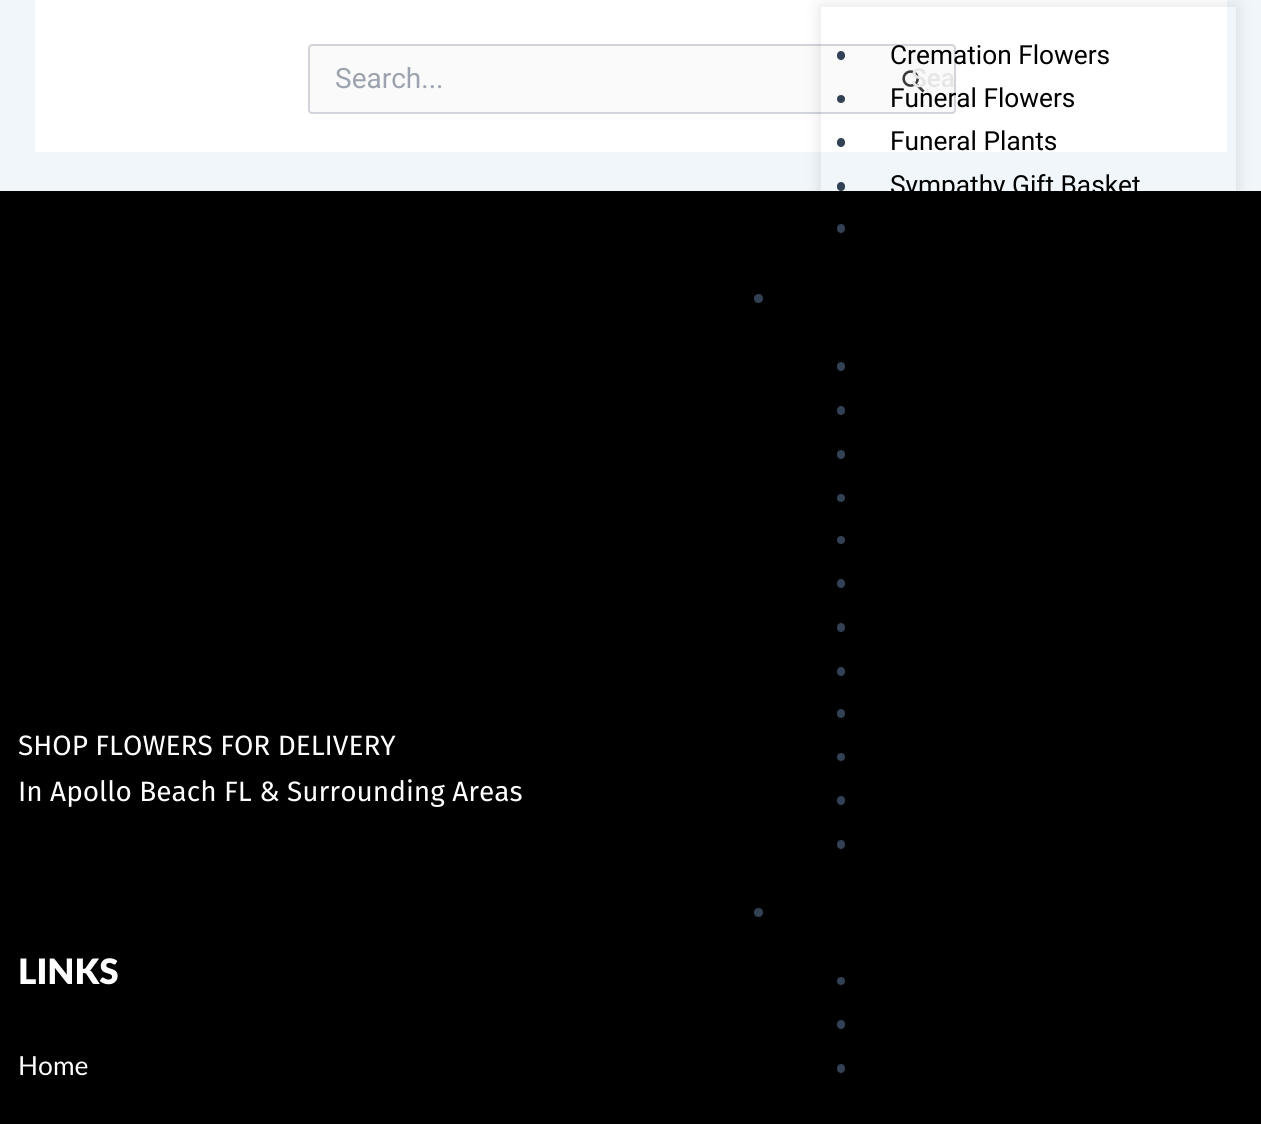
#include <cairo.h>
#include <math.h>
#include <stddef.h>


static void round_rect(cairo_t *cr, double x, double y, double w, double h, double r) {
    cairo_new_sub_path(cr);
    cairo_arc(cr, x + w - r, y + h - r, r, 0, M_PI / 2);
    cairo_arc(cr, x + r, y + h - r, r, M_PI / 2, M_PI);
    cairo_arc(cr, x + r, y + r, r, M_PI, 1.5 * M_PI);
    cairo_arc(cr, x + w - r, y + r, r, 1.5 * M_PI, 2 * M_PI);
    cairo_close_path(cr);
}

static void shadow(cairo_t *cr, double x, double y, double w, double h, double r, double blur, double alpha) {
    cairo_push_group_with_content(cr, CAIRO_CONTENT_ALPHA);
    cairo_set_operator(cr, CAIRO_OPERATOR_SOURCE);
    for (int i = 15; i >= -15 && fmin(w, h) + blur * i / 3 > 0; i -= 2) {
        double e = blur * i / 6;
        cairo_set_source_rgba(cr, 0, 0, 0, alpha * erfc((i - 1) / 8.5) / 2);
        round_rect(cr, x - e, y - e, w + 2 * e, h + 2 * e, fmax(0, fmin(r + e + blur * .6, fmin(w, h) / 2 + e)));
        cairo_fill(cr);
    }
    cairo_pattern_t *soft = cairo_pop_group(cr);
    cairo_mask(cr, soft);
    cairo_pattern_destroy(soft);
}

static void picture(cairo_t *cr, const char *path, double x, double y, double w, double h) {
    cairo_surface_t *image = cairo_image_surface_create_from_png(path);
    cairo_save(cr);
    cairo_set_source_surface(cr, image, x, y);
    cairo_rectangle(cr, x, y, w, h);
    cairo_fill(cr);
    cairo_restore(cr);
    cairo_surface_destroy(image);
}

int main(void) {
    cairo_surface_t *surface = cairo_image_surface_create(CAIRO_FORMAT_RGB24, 1261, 1124);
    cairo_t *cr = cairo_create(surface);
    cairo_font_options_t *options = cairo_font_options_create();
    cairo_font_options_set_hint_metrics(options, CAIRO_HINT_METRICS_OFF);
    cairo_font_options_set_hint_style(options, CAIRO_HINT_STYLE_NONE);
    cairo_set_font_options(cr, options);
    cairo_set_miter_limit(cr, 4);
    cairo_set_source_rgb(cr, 0.941, 0.961, 0.98);
    cairo_paint(cr);
    cairo_set_source_rgb(cr, 1, 1, 1);
    cairo_rectangle(cr, 35, 0, 1192, 152);
    cairo_fill(cr);
    cairo_set_source_rgb(cr, 0.98, 0.98, 0.98);
    round_rect(cr, 309, 45, 646, 68, 3);
    cairo_fill_preserve(cr);
    cairo_set_source_rgb(cr, 0.82, 0.835, 0.859);
    cairo_stroke(cr);
    cairo_select_font_face(cr, "Roboto", CAIRO_FONT_SLANT_NORMAL, CAIRO_FONT_WEIGHT_NORMAL);
    cairo_set_font_size(cr, 28);
    cairo_set_source_rgb(cr, 0.612, 0.639, 0.686);
    cairo_move_to(cr, 335, 88);
    cairo_show_text(cr, "Search...");
    picture(cr, "img1.png", 902, 70, 23, 23);
    cairo_select_font_face(cr, "Roboto Medium", CAIRO_FONT_SLANT_NORMAL, CAIRO_FONT_WEIGHT_NORMAL);
    cairo_set_font_size(cr, 26);
    cairo_set_source_rgb(cr, 0.902, 0.902, 0.902);
    cairo_move_to(cr, 911, 87);
    cairo_show_text(cr, "Sea");
    cairo_set_source_rgb(cr, 0, 0, 0);
    cairo_rectangle(cr, 0, 191, 1261, 933);
    cairo_fill(cr);
    cairo_save(cr);
    cairo_set_fill_rule(cr, CAIRO_FILL_RULE_EVEN_ODD);
    cairo_new_path(cr);
    cairo_move_to(cr, 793, 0);
    cairo_line_to(cr, 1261, 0);
    cairo_line_to(cr, 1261, 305);
    cairo_line_to(cr, 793, 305);
    cairo_close_path(cr);
    cairo_move_to(cr, 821, 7);
    cairo_line_to(cr, 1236, 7);
    cairo_line_to(cr, 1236, 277);
    cairo_line_to(cr, 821, 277);
    cairo_close_path(cr);
    cairo_clip(cr);
    cairo_set_source_rgb(cr, 0, 0, 0);
    shadow(cr, 821, 7, 415, 270, 0, 9, 0.12);
    cairo_restore(cr);
    cairo_set_source_rgb(cr, 0.2, 0.255, 0.333);
    round_rect(cr, 837, 51, 8, 9, 4);
    cairo_fill(cr);
    cairo_select_font_face(cr, "Roboto", CAIRO_FONT_SLANT_NORMAL, CAIRO_FONT_WEIGHT_NORMAL);
    cairo_set_font_size(cr, 26.25);
    cairo_set_source_rgb(cr, 0, 0, 0);
    cairo_move_to(cr, 890, 64);
    cairo_show_text(cr, "Cremation Flowers");
    cairo_set_source_rgb(cr, 0.2, 0.255, 0.333);
    cairo_new_path(cr);
    cairo_arc(cr, 841, 99, 4, 0, 2 * M_PI);
    cairo_fill(cr);
    cairo_set_source_rgb(cr, 0, 0, 0);
    cairo_move_to(cr, 890, 107);
    cairo_show_text(cr, "Funeral Flowers");
    cairo_set_source_rgb(cr, 0.2, 0.255, 0.333);
    round_rect(cr, 837, 138, 8, 9, 4);
    cairo_fill(cr);
    cairo_set_source_rgb(cr, 0, 0, 0);
    cairo_move_to(cr, 890, 150);
    cairo_show_text(cr, "Funeral Plants");
    cairo_set_source_rgb(cr, 0.2, 0.255, 0.333);
    round_rect(cr, 837, 182, 8, 9, 4);
    cairo_fill(cr);
    cairo_set_source_rgb(cr, 0, 0, 0);
    cairo_move_to(cr, 890, 194);
    cairo_show_text(cr, "Sympathy Gift Basket");
    cairo_set_source_rgb(cr, 0.2, 0.255, 0.333);
    round_rect(cr, 837, 224, 8, 9, 4);
    cairo_fill(cr);
    cairo_arc(cr, 758.5, 298.5, 4.5, 0, 2 * M_PI);
    cairo_fill(cr);
    round_rect(cr, 837, 362, 8, 9, 4);
    cairo_fill(cr);
    round_rect(cr, 837, 406, 8, 9, 4);
    cairo_fill(cr);
    round_rect(cr, 837, 450, 8, 9, 4);
    cairo_fill(cr);
    cairo_arc(cr, 841, 498, 4, 0, 2 * M_PI);
    cairo_fill(cr);
    cairo_arc(cr, 841, 540, 4, 0, 2 * M_PI);
    cairo_fill(cr);
    round_rect(cr, 837, 579, 8, 9, 4);
    cairo_fill(cr);
    round_rect(cr, 837, 623, 8, 9, 4);
    cairo_fill(cr);
    round_rect(cr, 837, 667, 8, 9, 4);
    cairo_fill(cr);
    round_rect(cr, 837, 709, 8, 9, 4);
    cairo_fill(cr);
    cairo_arc(cr, 841, 757, 4, 0, 2 * M_PI);
    cairo_fill(cr);
    round_rect(cr, 837, 796, 8, 9, 4);
    cairo_fill(cr);
    round_rect(cr, 837, 840, 8, 9, 4);
    cairo_fill(cr);
    cairo_arc(cr, 758.5, 912.5, 4.5, 0, 2 * M_PI);
    cairo_fill(cr);
    cairo_arc(cr, 841, 981, 4, 0, 2 * M_PI);
    cairo_fill(cr);
    round_rect(cr, 837, 1020, 8, 9, 4);
    cairo_fill(cr);
    round_rect(cr, 837, 1064, 8, 9, 4);
    cairo_fill(cr);
    cairo_select_font_face(cr, "Fira Sans", CAIRO_FONT_SLANT_NORMAL, CAIRO_FONT_WEIGHT_NORMAL);
    cairo_set_font_size(cr, 28);
    cairo_set_source_rgb(cr, 1, 1, 1);
    cairo_move_to(cr, 18, 755);
    cairo_show_text(cr, "SHOP FLOWERS FOR DELIVERY");
    cairo_move_to(cr, 18, 801);
    cairo_show_text(cr, "In Apollo Beach FL & Surrounding Areas");
    cairo_select_font_face(cr, "Lato ExtraBold", CAIRO_FONT_SLANT_NORMAL, CAIRO_FONT_WEIGHT_NORMAL);
    cairo_set_font_size(cr, 35);
    cairo_move_to(cr, 18, 984);
    cairo_show_text(cr, "LINKS");
    cairo_select_font_face(cr, "Lato", CAIRO_FONT_SLANT_NORMAL, CAIRO_FONT_WEIGHT_NORMAL);
    cairo_set_font_size(cr, 26.25);
    cairo_move_to(cr, 18, 1075);
    cairo_show_text(cr, "Home");
    cairo_surface_write_to_png(surface, "page.png");
    cairo_font_options_destroy(options);
    cairo_destroy(cr);
    cairo_surface_destroy(surface);
    return 0;
}
